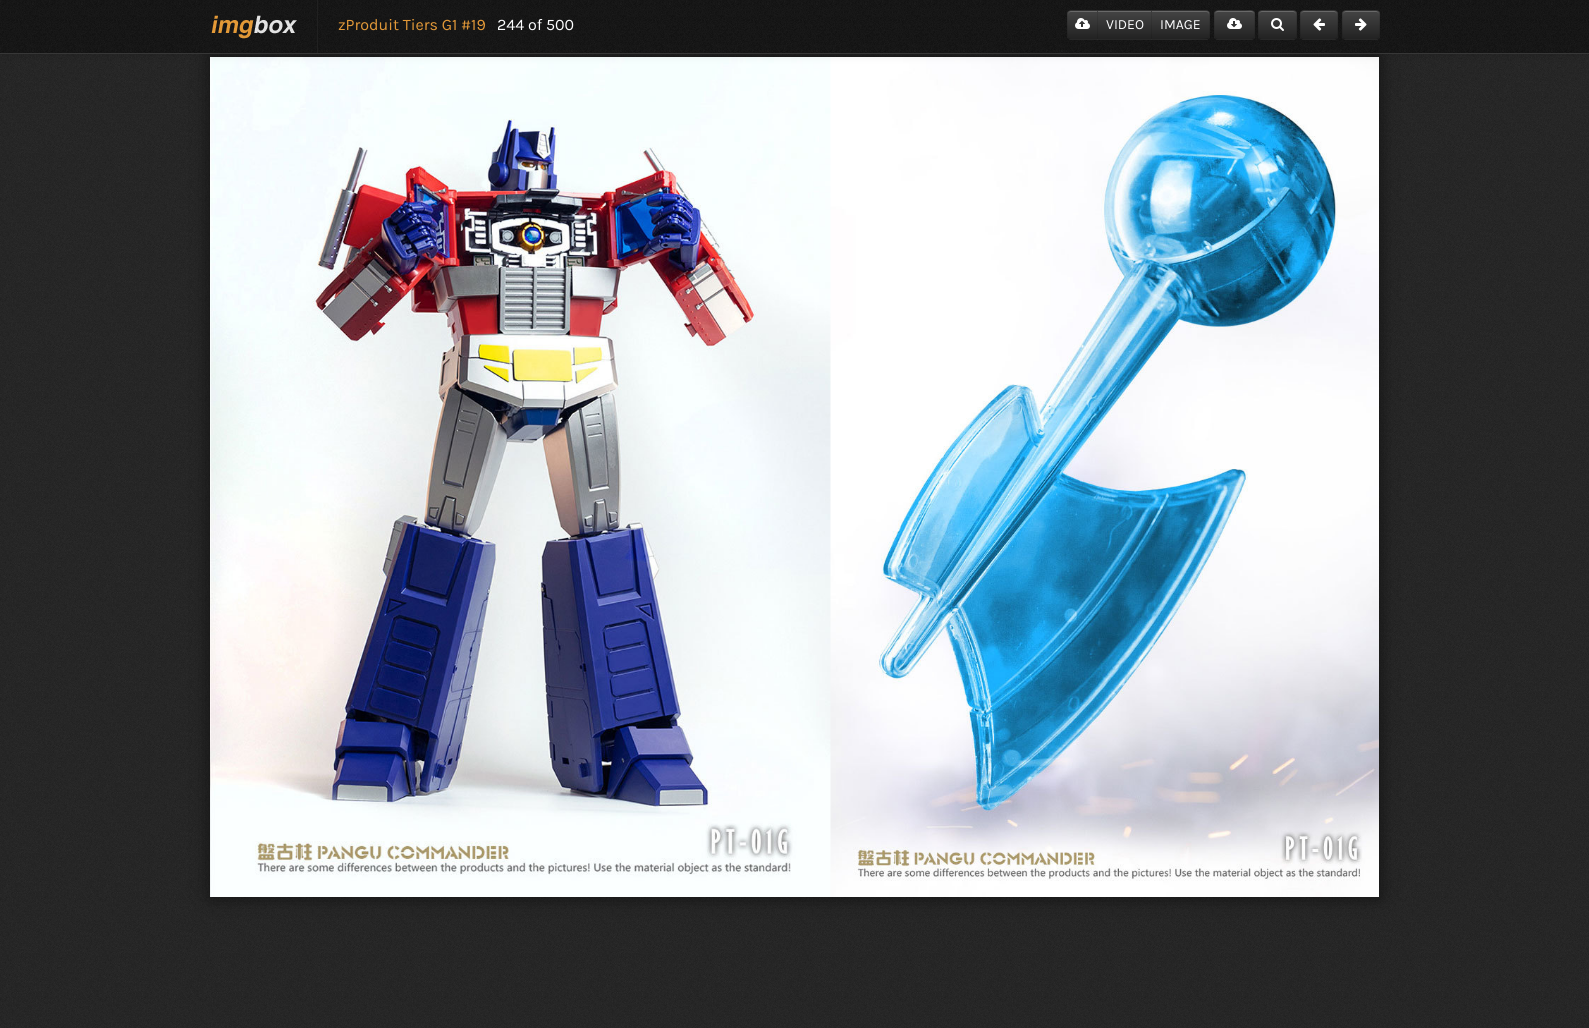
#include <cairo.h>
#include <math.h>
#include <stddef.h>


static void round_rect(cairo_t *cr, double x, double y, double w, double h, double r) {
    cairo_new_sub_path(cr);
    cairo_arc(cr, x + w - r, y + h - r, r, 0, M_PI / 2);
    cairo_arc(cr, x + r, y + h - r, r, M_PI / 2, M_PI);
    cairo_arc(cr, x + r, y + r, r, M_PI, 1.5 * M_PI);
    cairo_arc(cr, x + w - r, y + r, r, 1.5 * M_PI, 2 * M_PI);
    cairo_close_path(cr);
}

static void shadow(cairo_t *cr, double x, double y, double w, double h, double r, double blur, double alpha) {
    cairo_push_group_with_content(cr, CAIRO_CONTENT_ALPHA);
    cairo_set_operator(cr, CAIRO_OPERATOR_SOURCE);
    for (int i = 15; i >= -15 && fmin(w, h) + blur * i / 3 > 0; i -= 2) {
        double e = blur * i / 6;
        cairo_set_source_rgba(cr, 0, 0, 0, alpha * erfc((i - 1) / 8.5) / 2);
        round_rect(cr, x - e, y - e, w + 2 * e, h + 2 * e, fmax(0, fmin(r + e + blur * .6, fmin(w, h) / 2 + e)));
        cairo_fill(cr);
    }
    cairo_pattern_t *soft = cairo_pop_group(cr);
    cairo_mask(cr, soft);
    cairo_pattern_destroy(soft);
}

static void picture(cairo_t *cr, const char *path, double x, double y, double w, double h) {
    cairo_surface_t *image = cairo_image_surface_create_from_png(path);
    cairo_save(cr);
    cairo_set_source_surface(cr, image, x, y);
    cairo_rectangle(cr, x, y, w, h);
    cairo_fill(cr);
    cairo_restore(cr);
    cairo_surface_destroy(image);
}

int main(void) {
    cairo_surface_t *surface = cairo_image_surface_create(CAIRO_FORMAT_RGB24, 1589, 1028);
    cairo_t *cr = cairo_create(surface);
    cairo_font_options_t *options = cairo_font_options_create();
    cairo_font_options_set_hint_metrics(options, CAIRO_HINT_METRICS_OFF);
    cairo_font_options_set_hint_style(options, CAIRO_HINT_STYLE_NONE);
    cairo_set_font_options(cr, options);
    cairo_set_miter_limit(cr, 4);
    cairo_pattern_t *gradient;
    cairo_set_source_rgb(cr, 1, 1, 1);
    cairo_paint(cr);
    picture(cr, "img1.png", 0, 54, 1589, 974);
    cairo_set_source_rgb(cr, 0.067, 0.067, 0.067);
    shadow(cr, 210, 57, 1169, 840, 0, 10, 1);
    picture(cr, "img9.png", 210, 57, 1169, 840);
    cairo_set_source_rgb(cr, 0, 0, 0);
    shadow(cr, 0, 1, 1589, 54, 0, 5, 0.1);
    picture(cr, "img2.png", 0, 0, 1589, 53);
    cairo_set_source_rgb(cr, 0.216, 0.216, 0.216);
    cairo_rectangle(cr, 0, 53, 1589, 1);
    cairo_fill(cr);
    picture(cr, "img3.png", 211, 15, 86, 24);
    cairo_set_source_rgb(cr, 0.125, 0.125, 0.125);
    cairo_rectangle(cr, 317, 0, 1, 53);
    cairo_fill(cr);
    cairo_select_font_face(cr, "Karla", CAIRO_FONT_SLANT_NORMAL, CAIRO_FONT_WEIGHT_NORMAL);
    cairo_set_font_size(cr, 16);
    cairo_set_source_rgb(cr, 0.89, 0.6, 0.22);
    cairo_move_to(cr, 338, 30);
    cairo_show_text(cr, "zProduit Tiers G1 #19");
    cairo_set_source_rgb(cr, 0.992, 0.996, 1);
    cairo_move_to(cr, 497, 30);
    cairo_show_text(cr, "244 of 500");
    cairo_set_source_rgb(cr, 0.212, 0.212, 0.212);
    cairo_new_path(cr);
    cairo_move_to(cr, 1071, 10);
    cairo_line_to(cr, 1098, 10);
    cairo_line_to(cr, 1098, 40);
    cairo_line_to(cr, 1071, 40);
    cairo_curve_to(cr, 1069, 40, 1067, 38, 1067, 36);
    cairo_line_to(cr, 1067, 14);
    cairo_curve_to(cr, 1067, 12, 1069, 10, 1071, 10);
    cairo_close_path(cr);
    cairo_fill(cr);
    cairo_save(cr);
    cairo_new_path(cr);
    cairo_move_to(cr, 1071, 10);
    cairo_line_to(cr, 1098, 10);
    cairo_line_to(cr, 1098, 40);
    cairo_line_to(cr, 1071, 40);
    cairo_curve_to(cr, 1069, 40, 1067, 38, 1067, 36);
    cairo_line_to(cr, 1067, 14);
    cairo_curve_to(cr, 1067, 12, 1069, 10, 1071, 10);
    cairo_close_path(cr);
    cairo_clip(cr);
    gradient = cairo_pattern_create_linear(1083, 11, 1083, 39);
    cairo_pattern_add_color_stop_rgba(gradient, 0, 0.267, 0.267, 0.267, 1);
    cairo_pattern_add_color_stop_rgba(gradient, 1, 0.133, 0.133, 0.133, 1);
    cairo_set_source(cr, gradient);
    cairo_pattern_destroy(gradient);
    cairo_rectangle(cr, 1067, 11, 30, 28);
    cairo_fill(cr);
    cairo_restore(cr);
    cairo_set_source_rgb(cr, 0.412, 0.412, 0.412);
    cairo_new_path(cr);
    cairo_move_to(cr, 1071, 12);
    cairo_line_to(cr, 1097, 12);
    cairo_line_to(cr, 1097, 11);
    cairo_line_to(cr, 1071, 11);
    cairo_curve_to(cr, 1069.5, 11, 1068, 12.5, 1068, 14);
    cairo_line_to(cr, 1068, 15);
    cairo_curve_to(cr, 1068, 13, 1069, 12, 1071, 12);
    cairo_close_path(cr);
    cairo_fill(cr);
    cairo_set_source_rgba(cr, 0, 0, 0, 0.1);
    cairo_new_path(cr);
    cairo_move_to(cr, 1071, 10);
    cairo_curve_to(cr, 1070, 10, 1069, 10.5, 1068, 11);
    cairo_line_to(cr, 1069, 12);
    cairo_curve_to(cr, 1069.5, 11.5, 1070, 11, 1071, 11);
    cairo_line_to(cr, 1097, 11);
    cairo_line_to(cr, 1098, 10);
    cairo_close_path(cr);
    cairo_fill(cr);
    cairo_set_source_rgba(cr, 0, 0, 0, 0.25);
    cairo_new_path(cr);
    cairo_move_to(cr, 1098, 40);
    cairo_line_to(cr, 1097, 39);
    cairo_line_to(cr, 1071, 39);
    cairo_curve_to(cr, 1070, 39, 1069.5, 38.5, 1069, 38);
    cairo_line_to(cr, 1068, 39);
    cairo_curve_to(cr, 1069, 39.5, 1070, 40, 1071, 40);
    cairo_close_path(cr);
    cairo_fill(cr);
    cairo_set_source_rgba(cr, 0, 0, 0, 0.1);
    cairo_new_path(cr);
    cairo_move_to(cr, 1067, 14);
    cairo_line_to(cr, 1067, 36);
    cairo_curve_to(cr, 1067, 37, 1067.5, 38, 1068, 39);
    cairo_line_to(cr, 1069, 38);
    cairo_curve_to(cr, 1068.5, 37.5, 1068, 37, 1068, 36);
    cairo_line_to(cr, 1068, 14);
    cairo_curve_to(cr, 1068, 13, 1068.5, 12.5, 1069, 12);
    cairo_line_to(cr, 1068, 11);
    cairo_curve_to(cr, 1067.5, 12, 1067, 13, 1067, 14);
    cairo_close_path(cr);
    cairo_fill(cr);
    picture(cr, "img4.png", 1075, 18, 15, 11);
    cairo_set_source_rgb(cr, 0.212, 0.212, 0.212);
    cairo_rectangle(cr, 1097, 10, 54, 30);
    cairo_fill(cr);
    gradient = cairo_pattern_create_linear(1125, 11, 1125, 39);
    cairo_pattern_add_color_stop_rgba(gradient, 0, 0.267, 0.267, 0.267, 1);
    cairo_pattern_add_color_stop_rgba(gradient, 1, 0.133, 0.133, 0.133, 1);
    cairo_set_source(cr, gradient);
    cairo_pattern_destroy(gradient);
    cairo_rectangle(cr, 1097, 11, 54, 28);
    cairo_fill(cr);
    cairo_set_source_rgb(cr, 0.412, 0.412, 0.412);
    cairo_rectangle(cr, 1098, 11, 53, 1);
    cairo_fill(cr);
    cairo_set_source_rgb(cr, 0.192, 0.192, 0.192);
    cairo_new_path(cr);
    cairo_move_to(cr, 1097, 10);
    cairo_line_to(cr, 1152, 10);
    cairo_line_to(cr, 1151, 11);
    cairo_line_to(cr, 1098, 11);
    cairo_close_path(cr);
    cairo_fill(cr);
    cairo_set_source_rgba(cr, 0, 0, 0, 0.25);
    cairo_new_path(cr);
    cairo_move_to(cr, 1152, 40);
    cairo_line_to(cr, 1097, 40);
    cairo_line_to(cr, 1098, 39);
    cairo_line_to(cr, 1151, 39);
    cairo_close_path(cr);
    cairo_fill(cr);
    cairo_set_source_rgba(cr, 0, 0, 0, 0.1);
    cairo_new_path(cr);
    cairo_move_to(cr, 1097, 40);
    cairo_line_to(cr, 1097, 10);
    cairo_line_to(cr, 1098, 11);
    cairo_line_to(cr, 1098, 39);
    cairo_close_path(cr);
    cairo_fill(cr);
    cairo_set_font_size(cr, 14);
    cairo_set_source_rgb(cr, 0.992, 0.996, 1);
    cairo_move_to(cr, 1106, 29);
    cairo_show_text(cr, "VIDEO");
    cairo_set_source_rgb(cr, 0.212, 0.212, 0.212);
    cairo_new_path(cr);
    cairo_move_to(cr, 1151, 10);
    cairo_line_to(cr, 1206, 10);
    cairo_curve_to(cr, 1208, 10, 1210, 12, 1210, 14);
    cairo_line_to(cr, 1210, 36);
    cairo_curve_to(cr, 1210, 38, 1208, 40, 1206, 40);
    cairo_line_to(cr, 1151, 40);
    cairo_close_path(cr);
    cairo_fill(cr);
    cairo_save(cr);
    cairo_new_path(cr);
    cairo_move_to(cr, 1151, 10);
    cairo_line_to(cr, 1206, 10);
    cairo_curve_to(cr, 1208, 10, 1210, 12, 1210, 14);
    cairo_line_to(cr, 1210, 36);
    cairo_curve_to(cr, 1210, 38, 1208, 40, 1206, 40);
    cairo_line_to(cr, 1151, 40);
    cairo_close_path(cr);
    cairo_clip(cr);
    gradient = cairo_pattern_create_linear(1181, 11, 1181, 39);
    cairo_pattern_add_color_stop_rgba(gradient, 0, 0.267, 0.267, 0.267, 1);
    cairo_pattern_add_color_stop_rgba(gradient, 1, 0.133, 0.133, 0.133, 1);
    cairo_set_source(cr, gradient);
    cairo_pattern_destroy(gradient);
    cairo_rectangle(cr, 1151, 11, 59, 28);
    cairo_fill(cr);
    cairo_restore(cr);
    cairo_set_source_rgb(cr, 0.412, 0.412, 0.412);
    cairo_new_path(cr);
    cairo_move_to(cr, 1152, 12);
    cairo_line_to(cr, 1206, 12);
    cairo_curve_to(cr, 1208, 12, 1209, 13, 1209, 15);
    cairo_line_to(cr, 1209, 14);
    cairo_curve_to(cr, 1209, 12, 1208, 11, 1206, 11);
    cairo_line_to(cr, 1152, 11);
    cairo_close_path(cr);
    cairo_fill(cr);
    cairo_set_source_rgba(cr, 0, 0, 0, 0.1);
    cairo_new_path(cr);
    cairo_move_to(cr, 1151, 10);
    cairo_line_to(cr, 1152, 11);
    cairo_curve_to(cr, 1158, 11, 1206, 10, 1208, 12);
    cairo_line_to(cr, 1209, 11);
    cairo_line_to(cr, 1206, 10);
    cairo_close_path(cr);
    cairo_fill(cr);
    cairo_new_path(cr);
    cairo_move_to(cr, 1210, 36);
    cairo_line_to(cr, 1210, 14);
    cairo_curve_to(cr, 1210, 13, 1209.5, 12, 1209, 11);
    cairo_line_to(cr, 1208, 12);
    cairo_curve_to(cr, 1209, 12, 1209, 13, 1209, 14);
    cairo_line_to(cr, 1209, 36);
    cairo_curve_to(cr, 1209, 37, 1209, 38, 1208, 38);
    cairo_line_to(cr, 1209, 39);
    cairo_curve_to(cr, 1209.5, 38, 1210, 37, 1210, 36);
    cairo_close_path(cr);
    cairo_fill(cr);
    cairo_set_source_rgba(cr, 0, 0, 0, 0.25);
    cairo_new_path(cr);
    cairo_move_to(cr, 1206, 40);
    cairo_line_to(cr, 1209, 39);
    cairo_line_to(cr, 1208, 38);
    cairo_curve_to(cr, 1206, 40, 1158, 39, 1152, 39);
    cairo_line_to(cr, 1151, 40);
    cairo_close_path(cr);
    cairo_fill(cr);
    cairo_set_source_rgba(cr, 0, 0, 0, 0.1);
    cairo_new_path(cr);
    cairo_move_to(cr, 1151, 10);
    cairo_line_to(cr, 1151, 40);
    cairo_line_to(cr, 1152, 39);
    cairo_line_to(cr, 1152, 11);
    cairo_close_path(cr);
    cairo_fill(cr);
    cairo_set_source_rgb(cr, 0.992, 0.996, 1);
    cairo_move_to(cr, 1160, 29);
    cairo_show_text(cr, "IMAGE");
    cairo_set_source_rgb(cr, 0.212, 0.212, 0.212);
    round_rect(cr, 1214, 10, 41, 30, 4);
    cairo_fill(cr);
    cairo_save(cr);
    round_rect(cr, 1214, 10, 41, 30, 4);
    cairo_clip(cr);
    gradient = cairo_pattern_create_linear(1235, 11, 1235, 39);
    cairo_pattern_add_color_stop_rgba(gradient, 0, 0.267, 0.267, 0.267, 1);
    cairo_pattern_add_color_stop_rgba(gradient, 1, 0.133, 0.133, 0.133, 1);
    cairo_set_source(cr, gradient);
    cairo_pattern_destroy(gradient);
    cairo_rectangle(cr, 1214, 11, 41, 28);
    cairo_fill(cr);
    cairo_restore(cr);
    cairo_set_source_rgb(cr, 0.412, 0.412, 0.412);
    cairo_new_path(cr);
    cairo_move_to(cr, 1218, 12);
    cairo_line_to(cr, 1251, 12);
    cairo_curve_to(cr, 1253, 12, 1254, 13, 1254, 15);
    cairo_curve_to(cr, 1254, 9.5, 1250, 11, 1245.5, 11);
    cairo_line_to(cr, 1223.5, 11);
    cairo_curve_to(cr, 1219, 11, 1215, 9.5, 1215, 15);
    cairo_curve_to(cr, 1215, 13, 1216, 12, 1218, 12);
    cairo_close_path(cr);
    cairo_fill(cr);
    cairo_new_path(cr);
    cairo_move_to(cr, 1253.5, 38.5);
    cairo_curve_to(cr, 1253, 39, 1252, 39.5, 1251, 39.5);
    cairo_line_to(cr, 1218, 39.5);
    cairo_curve_to(cr, 1217, 39.5, 1216, 39, 1215.5, 38.5);
    cairo_set_source_rgba(cr, 0, 0, 0, 0.25);
    cairo_set_line_width(cr, 1);
    cairo_stroke(cr);
    cairo_new_path(cr);
    cairo_move_to(cr, 1215.5, 38.5);
    cairo_curve_to(cr, 1213.5, 36.5, 1214.5, 28, 1214.5, 25);
    cairo_curve_to(cr, 1214.5, 6, 1213, 10.5, 1234.5, 10.5);
    cairo_curve_to(cr, 1256, 10.5, 1254.5, 6, 1254.5, 25);
    cairo_curve_to(cr, 1254.5, 28, 1255.5, 36.5, 1253.5, 38.5);
    cairo_set_source_rgba(cr, 0, 0, 0, 0.1);
    cairo_stroke(cr);
    picture(cr, "img5.png", 1227, 18, 15, 11);
    cairo_set_source_rgb(cr, 0.212, 0.212, 0.212);
    round_rect(cr, 1258, 10, 39, 30, 4);
    cairo_fill(cr);
    cairo_save(cr);
    round_rect(cr, 1258, 10, 39, 30, 4);
    cairo_clip(cr);
    gradient = cairo_pattern_create_linear(1278, 11, 1278, 39);
    cairo_pattern_add_color_stop_rgba(gradient, 0, 0.267, 0.267, 0.267, 1);
    cairo_pattern_add_color_stop_rgba(gradient, 1, 0.133, 0.133, 0.133, 1);
    cairo_set_source(cr, gradient);
    cairo_pattern_destroy(gradient);
    cairo_rectangle(cr, 1258, 11, 39, 28);
    cairo_fill(cr);
    cairo_restore(cr);
    cairo_set_source_rgb(cr, 0.412, 0.412, 0.412);
    cairo_new_path(cr);
    cairo_move_to(cr, 1262, 12);
    cairo_line_to(cr, 1293, 12);
    cairo_curve_to(cr, 1295, 12, 1296, 13, 1296, 15);
    cairo_curve_to(cr, 1296, 10, 1292, 11, 1288, 11);
    cairo_line_to(cr, 1267, 11);
    cairo_curve_to(cr, 1263, 11, 1259, 10, 1259, 15);
    cairo_curve_to(cr, 1259, 13, 1260, 12, 1262, 12);
    cairo_close_path(cr);
    cairo_fill(cr);
    cairo_new_path(cr);
    cairo_move_to(cr, 1295.5, 38.5);
    cairo_curve_to(cr, 1295, 39, 1294, 39.5, 1293, 39.5);
    cairo_line_to(cr, 1262, 39.5);
    cairo_curve_to(cr, 1261, 39.5, 1260, 39, 1259.5, 38.5);
    cairo_set_source_rgba(cr, 0, 0, 0, 0.25);
    cairo_stroke(cr);
    cairo_new_path(cr);
    cairo_move_to(cr, 1259.5, 38.5);
    cairo_curve_to(cr, 1259, 38, 1258.5, 37, 1258.5, 36);
    cairo_line_to(cr, 1258.5, 14);
    cairo_curve_to(cr, 1258.5, 13, 1259, 12, 1259.5, 11.5);
    cairo_curve_to(cr, 1260, 11, 1261, 10.5, 1262, 10.5);
    cairo_line_to(cr, 1293, 10.5);
    cairo_curve_to(cr, 1294, 10.5, 1295, 11, 1295.5, 11.5);
    cairo_curve_to(cr, 1296, 12, 1296.5, 13, 1296.5, 14);
    cairo_line_to(cr, 1296.5, 36);
    cairo_curve_to(cr, 1296.5, 37, 1296, 38, 1295.5, 38.5);
    cairo_set_source_rgba(cr, 0, 0, 0, 0.1);
    cairo_stroke(cr);
    picture(cr, "img6.png", 1271, 18, 13, 13);
    cairo_set_source_rgb(cr, 0.212, 0.212, 0.212);
    round_rect(cr, 1300, 10, 38, 30, 4);
    cairo_fill(cr);
    cairo_save(cr);
    round_rect(cr, 1300, 10, 38, 30, 4);
    cairo_clip(cr);
    gradient = cairo_pattern_create_linear(1319, 11, 1319, 39);
    cairo_pattern_add_color_stop_rgba(gradient, 0, 0.267, 0.267, 0.267, 1);
    cairo_pattern_add_color_stop_rgba(gradient, 1, 0.133, 0.133, 0.133, 1);
    cairo_set_source(cr, gradient);
    cairo_pattern_destroy(gradient);
    cairo_rectangle(cr, 1300, 11, 38, 28);
    cairo_fill(cr);
    cairo_restore(cr);
    cairo_set_source_rgb(cr, 0.412, 0.412, 0.412);
    cairo_new_path(cr);
    cairo_move_to(cr, 1304, 12);
    cairo_line_to(cr, 1334, 12);
    cairo_curve_to(cr, 1336, 12, 1337, 13, 1337, 15);
    cairo_curve_to(cr, 1337, 10, 1333, 11, 1329, 11);
    cairo_line_to(cr, 1309, 11);
    cairo_curve_to(cr, 1305, 11, 1301, 10, 1301, 15);
    cairo_curve_to(cr, 1301, 13, 1302, 12, 1304, 12);
    cairo_close_path(cr);
    cairo_fill(cr);
    cairo_new_path(cr);
    cairo_move_to(cr, 1336.5, 38.5);
    cairo_curve_to(cr, 1336, 39, 1335, 39.5, 1334, 39.5);
    cairo_line_to(cr, 1304, 39.5);
    cairo_curve_to(cr, 1303, 39.5, 1302, 39, 1301.5, 38.5);
    cairo_set_source_rgba(cr, 0, 0, 0, 0.25);
    cairo_stroke(cr);
    cairo_new_path(cr);
    cairo_move_to(cr, 1301.5, 38.5);
    cairo_curve_to(cr, 1301, 38, 1300.5, 37, 1300.5, 36);
    cairo_line_to(cr, 1300.5, 14);
    cairo_curve_to(cr, 1300.5, 13, 1301, 12, 1301.5, 11.5);
    cairo_curve_to(cr, 1302, 11, 1303, 10.5, 1304, 10.5);
    cairo_line_to(cr, 1334, 10.5);
    cairo_curve_to(cr, 1335, 10.5, 1336, 11, 1336.5, 11.5);
    cairo_curve_to(cr, 1337, 12, 1337.5, 13, 1337.5, 14);
    cairo_line_to(cr, 1337.5, 36);
    cairo_curve_to(cr, 1337.5, 37, 1337, 38, 1336.5, 38.5);
    cairo_set_source_rgba(cr, 0, 0, 0, 0.1);
    cairo_stroke(cr);
    picture(cr, "img7.png", 1313, 18, 12, 13);
    cairo_set_source_rgb(cr, 0.212, 0.212, 0.212);
    round_rect(cr, 1342, 10, 38, 30, 4);
    cairo_fill(cr);
    cairo_save(cr);
    round_rect(cr, 1342, 10, 38, 30, 4);
    cairo_clip(cr);
    gradient = cairo_pattern_create_linear(1361, 11, 1361, 39);
    cairo_pattern_add_color_stop_rgba(gradient, 0, 0.267, 0.267, 0.267, 1);
    cairo_pattern_add_color_stop_rgba(gradient, 1, 0.133, 0.133, 0.133, 1);
    cairo_set_source(cr, gradient);
    cairo_pattern_destroy(gradient);
    cairo_rectangle(cr, 1342, 11, 38, 28);
    cairo_fill(cr);
    cairo_restore(cr);
    cairo_set_source_rgb(cr, 0.412, 0.412, 0.412);
    cairo_new_path(cr);
    cairo_move_to(cr, 1346, 12);
    cairo_line_to(cr, 1376, 12);
    cairo_curve_to(cr, 1378, 12, 1379, 13, 1379, 15);
    cairo_curve_to(cr, 1379, 10, 1375, 11, 1371, 11);
    cairo_line_to(cr, 1351, 11);
    cairo_curve_to(cr, 1347, 11, 1343, 10, 1343, 15);
    cairo_curve_to(cr, 1343, 13, 1344, 12, 1346, 12);
    cairo_close_path(cr);
    cairo_fill(cr);
    cairo_new_path(cr);
    cairo_move_to(cr, 1378.5, 38.5);
    cairo_curve_to(cr, 1378, 39, 1377, 39.5, 1376, 39.5);
    cairo_line_to(cr, 1346, 39.5);
    cairo_curve_to(cr, 1345, 39.5, 1344, 39, 1343.5, 38.5);
    cairo_set_source_rgba(cr, 0, 0, 0, 0.25);
    cairo_stroke(cr);
    cairo_new_path(cr);
    cairo_move_to(cr, 1343.5, 38.5);
    cairo_curve_to(cr, 1343, 38, 1342.5, 37, 1342.5, 36);
    cairo_line_to(cr, 1342.5, 14);
    cairo_curve_to(cr, 1342.5, 13, 1343, 12, 1343.5, 11.5);
    cairo_curve_to(cr, 1344, 11, 1345, 10.5, 1346, 10.5);
    cairo_line_to(cr, 1376, 10.5);
    cairo_curve_to(cr, 1377, 10.5, 1378, 11, 1378.5, 11.5);
    cairo_curve_to(cr, 1379, 12, 1379.5, 13, 1379.5, 14);
    cairo_line_to(cr, 1379.5, 36);
    cairo_curve_to(cr, 1379.5, 37, 1379, 38, 1378.5, 38.5);
    cairo_set_source_rgba(cr, 0, 0, 0, 0.1);
    cairo_stroke(cr);
    picture(cr, "img8.png", 1355, 18, 12, 13);
    cairo_surface_write_to_png(surface, "page.png");
    cairo_font_options_destroy(options);
    cairo_destroy(cr);
    cairo_surface_destroy(surface);
    return 0;
}
